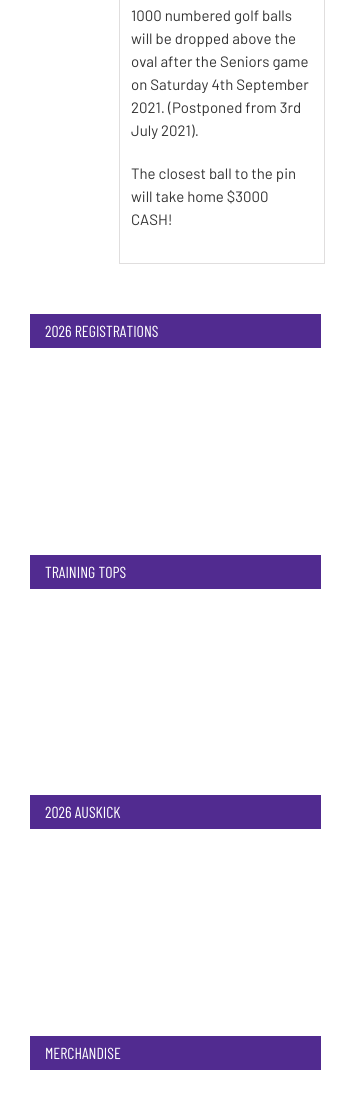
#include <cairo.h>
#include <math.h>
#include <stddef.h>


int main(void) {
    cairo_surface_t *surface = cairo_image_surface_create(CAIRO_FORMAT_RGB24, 355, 1120);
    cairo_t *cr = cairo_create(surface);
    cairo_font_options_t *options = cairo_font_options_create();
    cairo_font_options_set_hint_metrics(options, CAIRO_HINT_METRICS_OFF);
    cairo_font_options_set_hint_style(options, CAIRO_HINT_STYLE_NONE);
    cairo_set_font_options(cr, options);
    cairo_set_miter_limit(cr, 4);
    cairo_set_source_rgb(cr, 1, 1, 1);
    cairo_paint(cr);
    cairo_rectangle(cr, 119.5, -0.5, 205, 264);
    cairo_set_source_rgb(cr, 0.878, 0.871, 0.871);
    cairo_set_line_width(cr, 1);
    cairo_stroke(cr);
    cairo_select_font_face(cr, "Barlow", CAIRO_FONT_SLANT_NORMAL, CAIRO_FONT_WEIGHT_NORMAL);
    cairo_set_font_size(cr, 15);
    cairo_set_source_rgb(cr, 0.2, 0.2, 0.2);
    cairo_move_to(cr, 131, 21);
    cairo_show_text(cr, "1000 numbered golf balls");
    cairo_move_to(cr, 131, 44);
    cairo_show_text(cr, "will be dropped above the");
    cairo_move_to(cr, 131, 67);
    cairo_show_text(cr, "oval after the Seniors game");
    cairo_move_to(cr, 131, 90);
    cairo_show_text(cr, "on Saturday 4th September");
    cairo_move_to(cr, 131, 113);
    cairo_show_text(cr, "2021. (Postponed from 3rd");
    cairo_move_to(cr, 131, 136);
    cairo_show_text(cr, "July 2021).");
    cairo_move_to(cr, 131, 179);
    cairo_show_text(cr, "The closest ball to the pin");
    cairo_move_to(cr, 131, 202);
    cairo_show_text(cr, "will take home $3000");
    cairo_move_to(cr, 131, 225);
    cairo_show_text(cr, "CASH!");
    cairo_set_source_rgb(cr, 0.318, 0.169, 0.565);
    cairo_rectangle(cr, 30, 314, 291, 34);
    cairo_fill(cr);
    cairo_select_font_face(cr, "Barlow Condensed", CAIRO_FONT_SLANT_NORMAL, CAIRO_FONT_WEIGHT_NORMAL);
    cairo_set_font_size(cr, 16);
    cairo_set_source_rgb(cr, 1, 1, 1);
    cairo_move_to(cr, 45, 337);
    cairo_show_text(cr, "2026 REGISTRATIONS");
    cairo_set_source_rgb(cr, 0.318, 0.169, 0.565);
    cairo_rectangle(cr, 30, 555, 291, 34);
    cairo_fill(cr);
    cairo_set_source_rgb(cr, 1, 1, 1);
    cairo_move_to(cr, 45, 578);
    cairo_show_text(cr, "TRAINING TOPS");
    cairo_set_source_rgb(cr, 0.318, 0.169, 0.565);
    cairo_rectangle(cr, 30, 795, 291, 34);
    cairo_fill(cr);
    cairo_set_source_rgb(cr, 1, 1, 1);
    cairo_move_to(cr, 45, 818);
    cairo_show_text(cr, "2026 AUSKICK");
    cairo_set_source_rgb(cr, 0.318, 0.169, 0.565);
    cairo_rectangle(cr, 30, 1036, 291, 34);
    cairo_fill(cr);
    cairo_set_source_rgb(cr, 1, 1, 1);
    cairo_move_to(cr, 45, 1059);
    cairo_show_text(cr, "MERCHANDISE");
    cairo_surface_write_to_png(surface, "page.png");
    cairo_font_options_destroy(options);
    cairo_destroy(cr);
    cairo_surface_destroy(surface);
    return 0;
}
